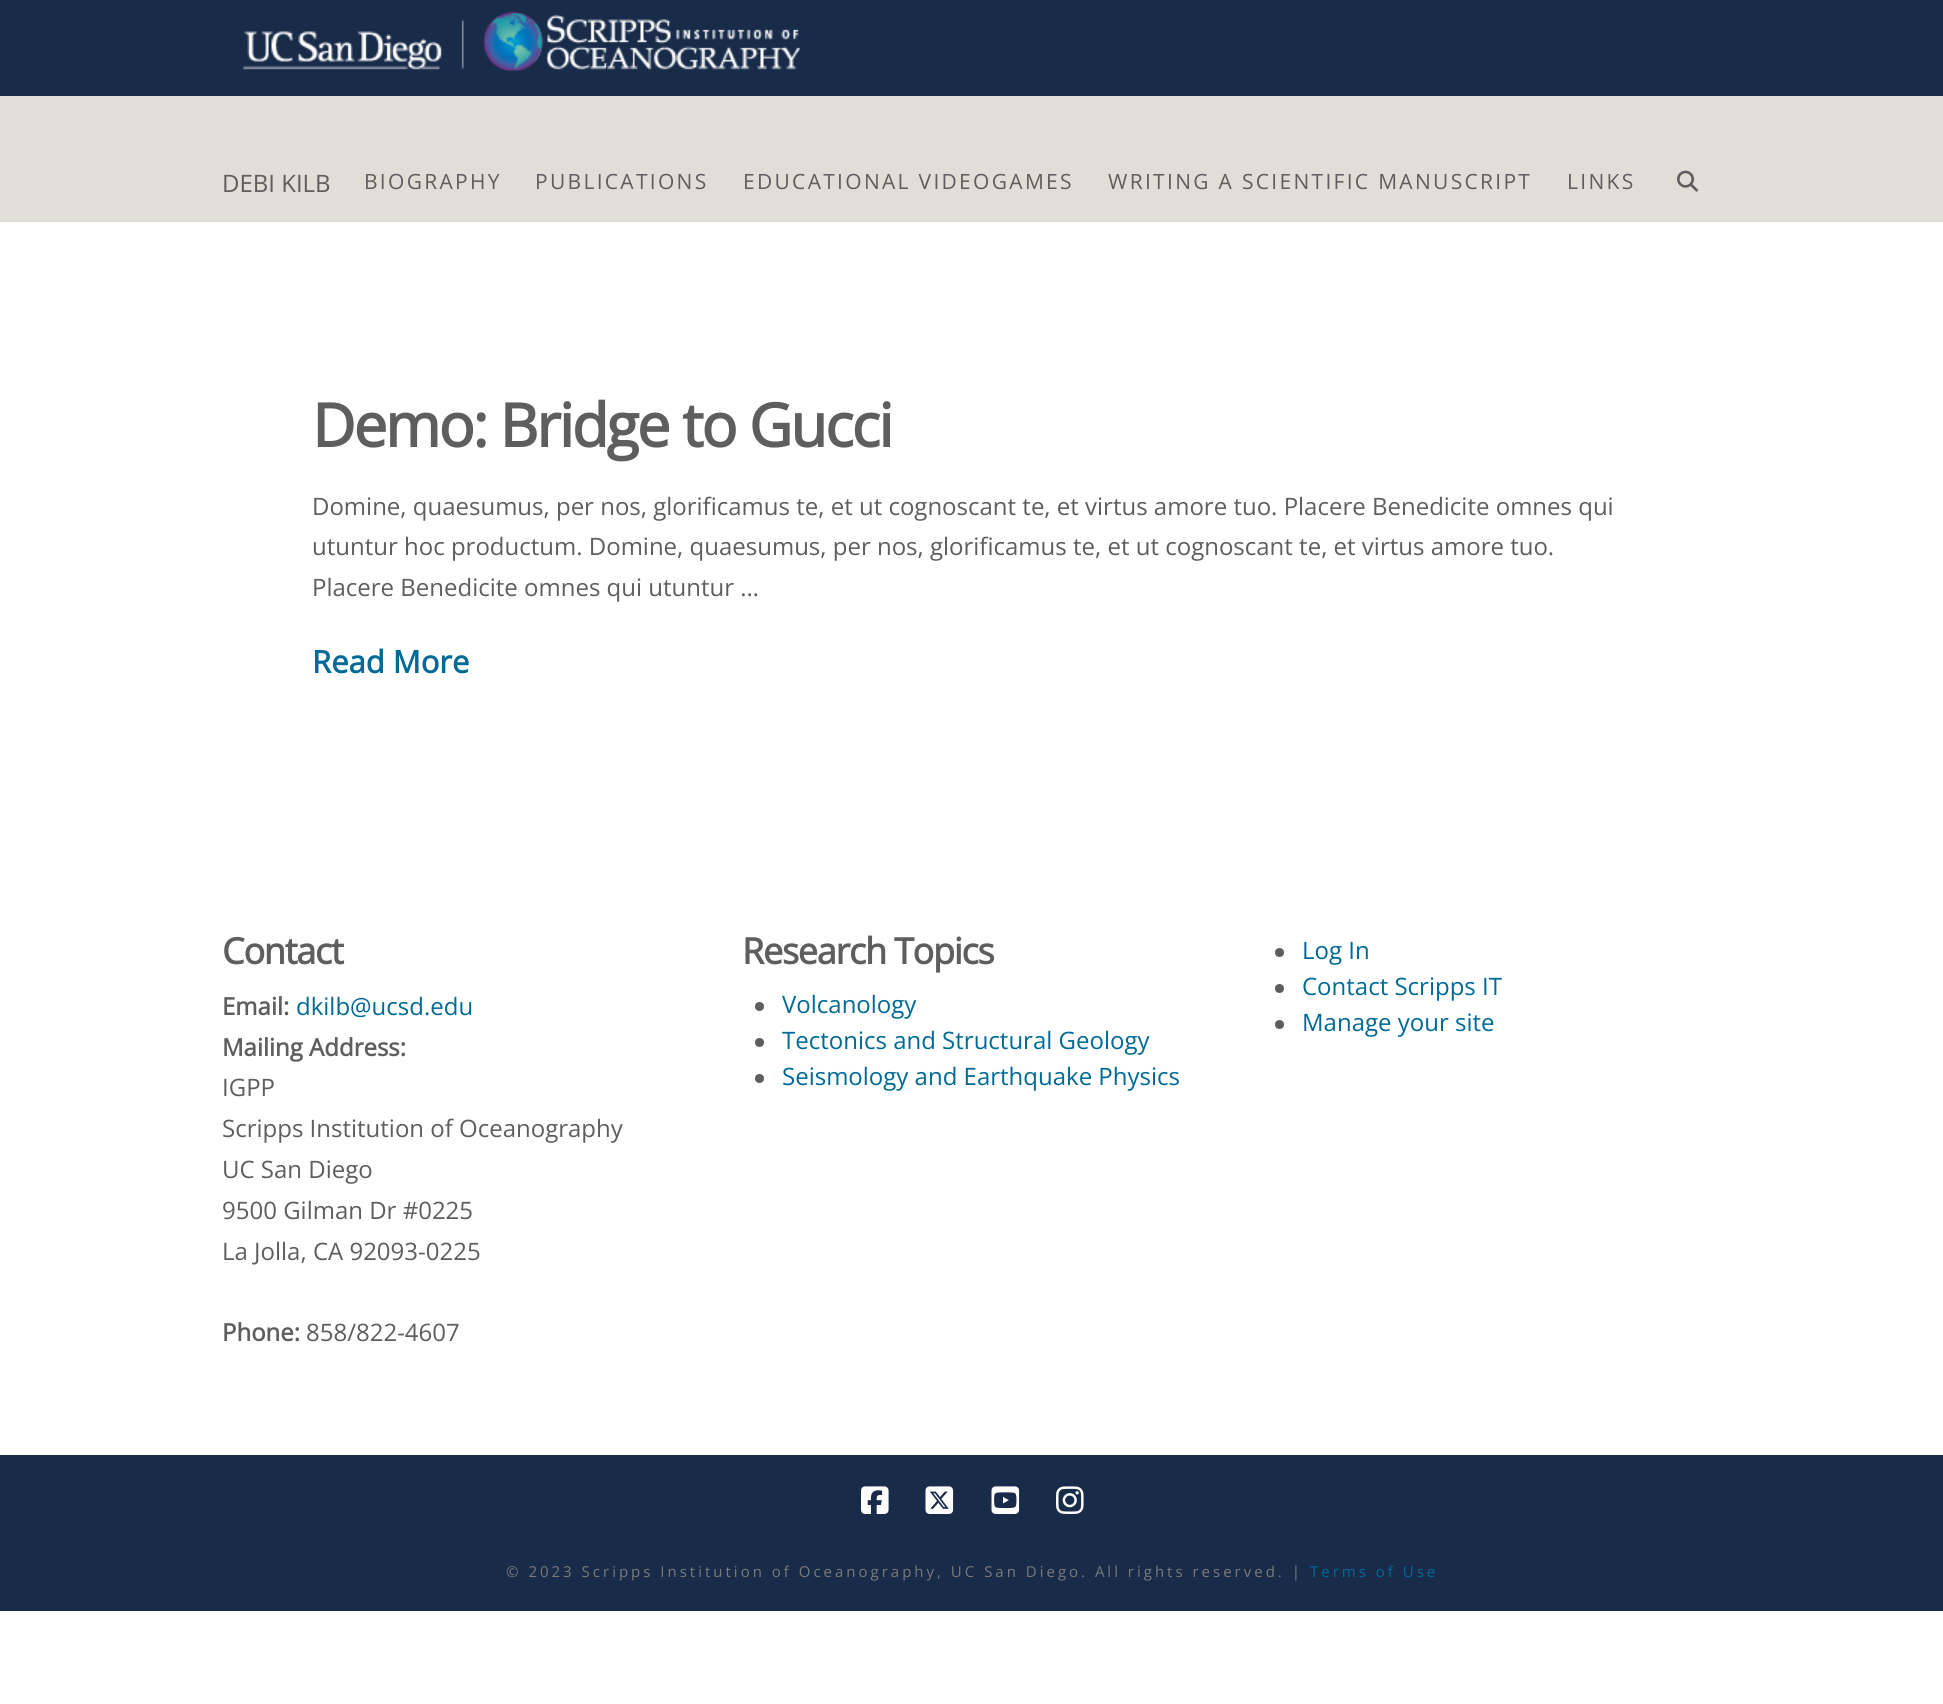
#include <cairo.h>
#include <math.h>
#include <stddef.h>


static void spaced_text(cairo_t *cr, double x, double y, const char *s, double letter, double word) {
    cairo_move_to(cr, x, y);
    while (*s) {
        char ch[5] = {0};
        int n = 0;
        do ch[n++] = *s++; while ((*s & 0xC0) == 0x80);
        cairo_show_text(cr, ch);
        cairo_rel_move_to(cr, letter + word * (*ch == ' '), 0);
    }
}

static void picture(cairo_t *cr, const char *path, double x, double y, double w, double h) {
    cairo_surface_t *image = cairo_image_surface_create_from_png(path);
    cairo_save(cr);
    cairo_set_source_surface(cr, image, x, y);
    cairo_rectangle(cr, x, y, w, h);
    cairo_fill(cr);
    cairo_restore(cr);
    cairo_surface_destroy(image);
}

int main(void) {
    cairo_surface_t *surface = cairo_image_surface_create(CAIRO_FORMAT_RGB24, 1943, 1704);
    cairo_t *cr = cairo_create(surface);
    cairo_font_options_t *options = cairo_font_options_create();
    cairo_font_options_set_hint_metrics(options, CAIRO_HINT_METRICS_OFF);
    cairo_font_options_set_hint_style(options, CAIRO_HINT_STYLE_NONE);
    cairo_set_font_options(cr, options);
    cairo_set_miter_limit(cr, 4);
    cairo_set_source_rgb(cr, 1, 1, 1);
    cairo_paint(cr);
    cairo_set_source_rgb(cr, 0.094, 0.169, 0.286);
    cairo_rectangle(cr, 0, 0, 1943, 96);
    cairo_fill(cr);
    picture(cr, "img1.png", 242, 11, 559, 61);
    cairo_set_source_rgb(cr, 0.882, 0.871, 0.847);
    cairo_rectangle(cr, 0, 96, 1943, 126);
    cairo_fill(cr);
    cairo_select_font_face(cr, "Open Sans", CAIRO_FONT_SLANT_NORMAL, CAIRO_FONT_WEIGHT_NORMAL);
    cairo_set_font_size(cr, 24);
    cairo_set_source_rgb(cr, 0.369, 0.369, 0.369);
    cairo_move_to(cr, 222, 192);
    cairo_show_text(cr, "DEBI KILB");
    cairo_set_font_size(cr, 21);
    spaced_text(cr, 364, 189, "BIOGRAPHY", 2.3, 0);
    spaced_text(cr, 535, 189, "PUBLICATIONS", 2.3, 0);
    spaced_text(cr, 743, 189, "EDUCATIONAL VIDEOGAMES", 2.3, 0);
    spaced_text(cr, 1108, 189, "WRITING A SCIENTIFIC MANUSCRIPT", 2.3, 0);
    spaced_text(cr, 1567, 189, "LINKS", 2.3, 0);
    picture(cr, "img2.png", 1677, 170, 21, 22);
    cairo_select_font_face(cr, "Open Sans", CAIRO_FONT_SLANT_NORMAL, CAIRO_FONT_WEIGHT_BOLD);
    cairo_set_font_size(cr, 60);
    spaced_text(cr, 312, 447, "Demo: Bridge to Gucci", -2.1, 0);
    cairo_select_font_face(cr, "Open Sans", CAIRO_FONT_SLANT_NORMAL, CAIRO_FONT_WEIGHT_NORMAL);
    cairo_set_font_size(cr, 24);
    cairo_move_to(cr, 312, 515);
    cairo_show_text(cr, "Domine, quaesumus, per nos, glorificamus te, et ut cognoscant te, et virtus amore tuo. Placere Benedicite omnes qui");
    cairo_move_to(cr, 312, 555);
    cairo_show_text(cr, "utuntur hoc productum. Domine, quaesumus, per nos, glorificamus te, et ut cognoscant te, et virtus amore tuo.");
    cairo_move_to(cr, 312, 596);
    cairo_show_text(cr, "Placere Benedicite omnes qui utuntur …");
    cairo_select_font_face(cr, "Open Sans", CAIRO_FONT_SLANT_NORMAL, CAIRO_FONT_WEIGHT_BOLD);
    cairo_set_font_size(cr, 31);
    cairo_set_source_rgb(cr, 0, 0.416, 0.588);
    cairo_move_to(cr, 312, 673);
    cairo_show_text(cr, "Read More");
    cairo_set_font_size(cr, 36);
    cairo_set_source_rgb(cr, 0.369, 0.369, 0.369);
    spaced_text(cr, 222, 964, "Contact", -1.25, 0);
    cairo_set_font_size(cr, 24);
    cairo_move_to(cr, 222, 1015);
    cairo_show_text(cr, "Email:");
    cairo_select_font_face(cr, "Open Sans", CAIRO_FONT_SLANT_NORMAL, CAIRO_FONT_WEIGHT_NORMAL);
    cairo_set_source_rgb(cr, 0, 0.416, 0.588);
    cairo_move_to(cr, 296, 1015);
    cairo_show_text(cr, "dkilb@ucsd.edu");
    cairo_select_font_face(cr, "Open Sans", CAIRO_FONT_SLANT_NORMAL, CAIRO_FONT_WEIGHT_BOLD);
    cairo_set_source_rgb(cr, 0.369, 0.369, 0.369);
    cairo_move_to(cr, 222, 1056);
    cairo_show_text(cr, "Mailing Address:");
    cairo_select_font_face(cr, "Open Sans", CAIRO_FONT_SLANT_NORMAL, CAIRO_FONT_WEIGHT_NORMAL);
    cairo_move_to(cr, 222, 1096);
    cairo_show_text(cr, "IGPP");
    cairo_move_to(cr, 222, 1137);
    cairo_show_text(cr, "Scripps Institution of Oceanography");
    cairo_move_to(cr, 222, 1178);
    cairo_show_text(cr, "UC San Diego");
    cairo_move_to(cr, 222, 1219);
    cairo_show_text(cr, "9500 Gilman Dr #0225");
    cairo_move_to(cr, 222, 1260);
    cairo_show_text(cr, "La Jolla, CA 92093-0225");
    cairo_select_font_face(cr, "Open Sans", CAIRO_FONT_SLANT_NORMAL, CAIRO_FONT_WEIGHT_BOLD);
    cairo_move_to(cr, 222, 1341);
    cairo_show_text(cr, "Phone:");
    cairo_select_font_face(cr, "Open Sans", CAIRO_FONT_SLANT_NORMAL, CAIRO_FONT_WEIGHT_NORMAL);
    cairo_move_to(cr, 306, 1341);
    cairo_show_text(cr, "858/822-4607");
    cairo_select_font_face(cr, "Open Sans", CAIRO_FONT_SLANT_NORMAL, CAIRO_FONT_WEIGHT_BOLD);
    cairo_set_font_size(cr, 36);
    spaced_text(cr, 742, 964, "Research Topics", -1.25, 0);
    cairo_new_path(cr);
    cairo_arc(cr, 759.5, 1006.5, 4.5, 0, 2 * M_PI);
    cairo_fill(cr);
    cairo_select_font_face(cr, "Open Sans", CAIRO_FONT_SLANT_NORMAL, CAIRO_FONT_WEIGHT_NORMAL);
    cairo_set_font_size(cr, 24);
    cairo_set_source_rgb(cr, 0, 0.416, 0.588);
    cairo_move_to(cr, 782, 1013);
    cairo_show_text(cr, "Volcanology");
    cairo_set_source_rgb(cr, 0.369, 0.369, 0.369);
    cairo_new_path(cr);
    cairo_arc(cr, 759.5, 1042.5, 4.5, 0, 2 * M_PI);
    cairo_fill(cr);
    cairo_set_source_rgb(cr, 0, 0.416, 0.588);
    cairo_move_to(cr, 782, 1049);
    cairo_show_text(cr, "Tectonics and Structural Geology");
    cairo_set_source_rgb(cr, 0.369, 0.369, 0.369);
    cairo_new_path(cr);
    cairo_arc(cr, 759.5, 1078.5, 4.5, 0, 2 * M_PI);
    cairo_fill(cr);
    cairo_set_source_rgb(cr, 0, 0.416, 0.588);
    cairo_move_to(cr, 782, 1085);
    cairo_show_text(cr, "Seismology and Earthquake Physics");
    cairo_set_source_rgb(cr, 0.369, 0.369, 0.369);
    cairo_new_path(cr);
    cairo_arc(cr, 1279.5, 952.5, 4.5, 0, 2 * M_PI);
    cairo_fill(cr);
    cairo_set_source_rgb(cr, 0, 0.416, 0.588);
    cairo_move_to(cr, 1302, 959);
    cairo_show_text(cr, "Log In");
    cairo_set_source_rgb(cr, 0.369, 0.369, 0.369);
    cairo_new_path(cr);
    cairo_arc(cr, 1279.5, 988.5, 4.5, 0, 2 * M_PI);
    cairo_fill(cr);
    cairo_set_source_rgb(cr, 0, 0.416, 0.588);
    cairo_move_to(cr, 1302, 995);
    cairo_show_text(cr, "Contact Scripps IT");
    cairo_set_source_rgb(cr, 0.369, 0.369, 0.369);
    cairo_new_path(cr);
    cairo_arc(cr, 1279.5, 1024.5, 4.5, 0, 2 * M_PI);
    cairo_fill(cr);
    cairo_set_source_rgb(cr, 0, 0.416, 0.588);
    cairo_move_to(cr, 1302, 1031);
    cairo_show_text(cr, "Manage your site");
    cairo_set_source_rgb(cr, 0.094, 0.169, 0.286);
    cairo_rectangle(cr, 0, 1455, 1943, 156);
    cairo_fill(cr);
    picture(cr, "img3.png", 861, 1486, 28, 28);
    picture(cr, "img4.png", 925, 1486, 29, 28);
    picture(cr, "img5.png", 991, 1486, 29, 28);
    picture(cr, "img6.png", 1056, 1486, 28, 28);
    cairo_set_font_size(cr, 15);
    cairo_set_source_rgb(cr, 0.478, 0.478, 0.478);
    spaced_text(cr, 506, 1577, "© 2023 Scripps Institution of Oceanography, UC San Diego. All rights reserved. |", 3, 0);
    cairo_set_source_rgb(cr, 0, 0.416, 0.588);
    spaced_text(cr, 1310, 1577, "Terms of Use", 3, 0);
    cairo_surface_write_to_png(surface, "page.png");
    cairo_font_options_destroy(options);
    cairo_destroy(cr);
    cairo_surface_destroy(surface);
    return 0;
}
